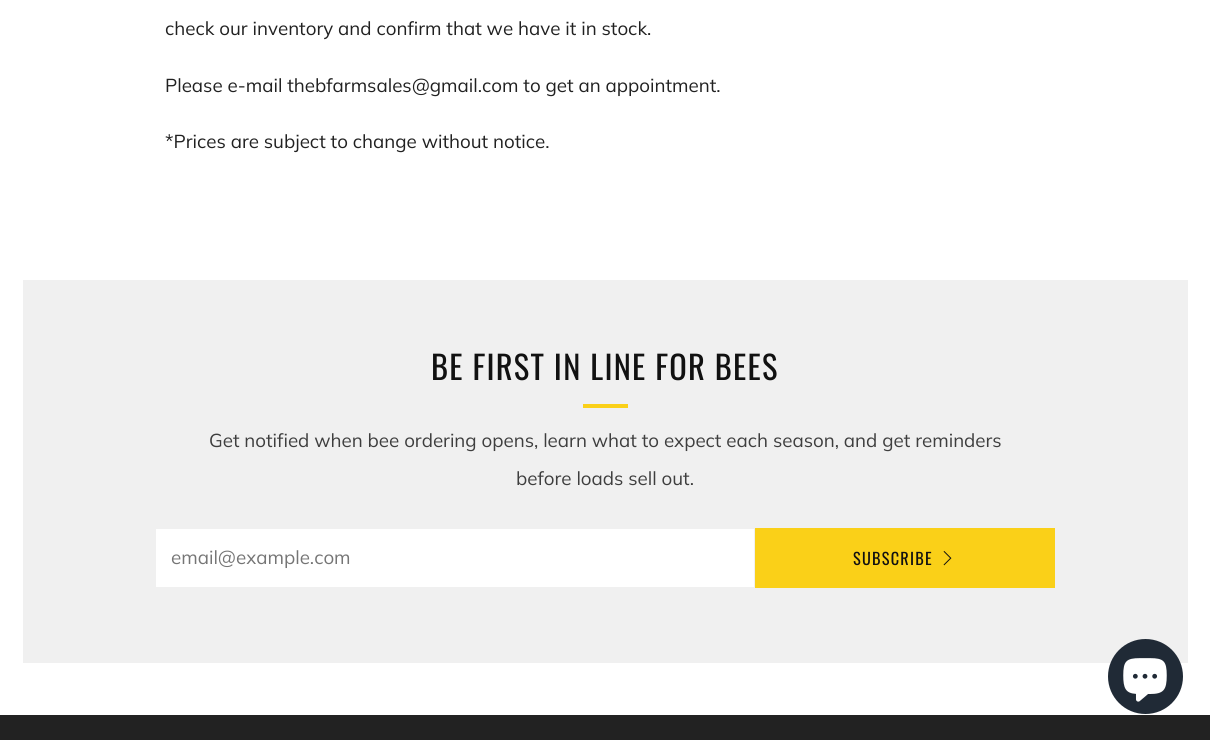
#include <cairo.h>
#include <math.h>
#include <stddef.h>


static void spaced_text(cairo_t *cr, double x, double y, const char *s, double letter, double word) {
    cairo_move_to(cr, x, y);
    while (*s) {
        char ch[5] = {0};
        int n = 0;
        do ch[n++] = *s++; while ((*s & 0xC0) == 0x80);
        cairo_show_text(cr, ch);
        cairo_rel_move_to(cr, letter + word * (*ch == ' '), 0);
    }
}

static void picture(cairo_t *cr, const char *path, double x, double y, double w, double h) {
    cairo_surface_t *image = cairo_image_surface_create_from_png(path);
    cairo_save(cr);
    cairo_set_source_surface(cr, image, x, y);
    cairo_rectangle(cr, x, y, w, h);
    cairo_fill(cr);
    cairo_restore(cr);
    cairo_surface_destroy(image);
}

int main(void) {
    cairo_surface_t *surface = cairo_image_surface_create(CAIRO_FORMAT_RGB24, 1210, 740);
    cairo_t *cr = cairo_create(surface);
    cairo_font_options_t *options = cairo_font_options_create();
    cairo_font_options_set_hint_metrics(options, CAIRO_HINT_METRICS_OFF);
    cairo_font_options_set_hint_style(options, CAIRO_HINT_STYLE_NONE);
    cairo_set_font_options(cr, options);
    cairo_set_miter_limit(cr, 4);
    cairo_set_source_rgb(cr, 1, 1, 1);
    cairo_paint(cr);
    cairo_select_font_face(cr, "Muli", CAIRO_FONT_SLANT_NORMAL, CAIRO_FONT_WEIGHT_NORMAL);
    cairo_set_font_size(cr, 18.75);
    cairo_set_source_rgb(cr, 0.129, 0.129, 0.129);
    cairo_move_to(cr, 165, 35);
    cairo_show_text(cr, "check our inventory and confirm that we have it in stock.");
    cairo_move_to(cr, 165, 92);
    cairo_show_text(cr, "Please e-mail thebfarmsales@gmail.com to get an appointment.");
    cairo_move_to(cr, 165, 148);
    cairo_show_text(cr, "*Prices are subject to change without notice.");
    cairo_set_source_rgb(cr, 0.941, 0.941, 0.941);
    cairo_rectangle(cr, 23, 280, 1165, 383);
    cairo_fill(cr);
    cairo_select_font_face(cr, "Oswald", CAIRO_FONT_SLANT_NORMAL, CAIRO_FONT_WEIGHT_NORMAL);
    cairo_set_font_size(cr, 32.5);
    cairo_set_source_rgb(cr, 0.067, 0.067, 0.067);
    spaced_text(cr, 431, 380, "BE FIRST IN LINE FOR BEES", 1.25, 0);
    cairo_set_source_rgb(cr, 0.98, 0.816, 0.094);
    cairo_rectangle(cr, 583, 404, 45, 4);
    cairo_fill(cr);
    cairo_select_font_face(cr, "Muli", CAIRO_FONT_SLANT_NORMAL, CAIRO_FONT_WEIGHT_NORMAL);
    cairo_set_font_size(cr, 18.75);
    cairo_set_source_rgb(cr, 0.243, 0.243, 0.243);
    cairo_move_to(cr, 209, 447);
    cairo_show_text(cr, "Get notified when bee ordering opens, learn what to expect each season, and get reminders");
    cairo_move_to(cr, 516, 485);
    cairo_show_text(cr, "before loads sell out.");
    cairo_set_source_rgb(cr, 1, 1, 1);
    cairo_rectangle(cr, 156, 529, 598, 58);
    cairo_fill(cr);
    cairo_set_source_rgb(cr, 0.459, 0.459, 0.459);
    cairo_move_to(cr, 171, 564);
    cairo_show_text(cr, "email@example.com");
    cairo_set_source_rgb(cr, 0.98, 0.816, 0.094);
    cairo_rectangle(cr, 755, 528, 300, 60);
    cairo_fill(cr);
    cairo_select_font_face(cr, "Oswald", CAIRO_FONT_SLANT_NORMAL, CAIRO_FONT_WEIGHT_NORMAL);
    cairo_set_font_size(cr, 16.25);
    cairo_set_source_rgb(cr, 0.067, 0.067, 0.067);
    spaced_text(cr, 853, 565, "SUBSCRIBE", 1.25, 0);
    picture(cr, "img1.png", 943, 551, 9, 15);
    cairo_set_source_rgb(cr, 0.133, 0.133, 0.133);
    cairo_rectangle(cr, 0, 715, 1210, 25);
    cairo_fill(cr);
    cairo_set_source_rgb(cr, 0.125, 0.165, 0.212);
    cairo_arc(cr, 1145.5, 676.5, 37.5, 0, 2 * M_PI);
    cairo_fill(cr);
    picture(cr, "img2.png", 1123, 658, 44, 44);
    cairo_surface_write_to_png(surface, "page.png");
    cairo_font_options_destroy(options);
    cairo_destroy(cr);
    cairo_surface_destroy(surface);
    return 0;
}
